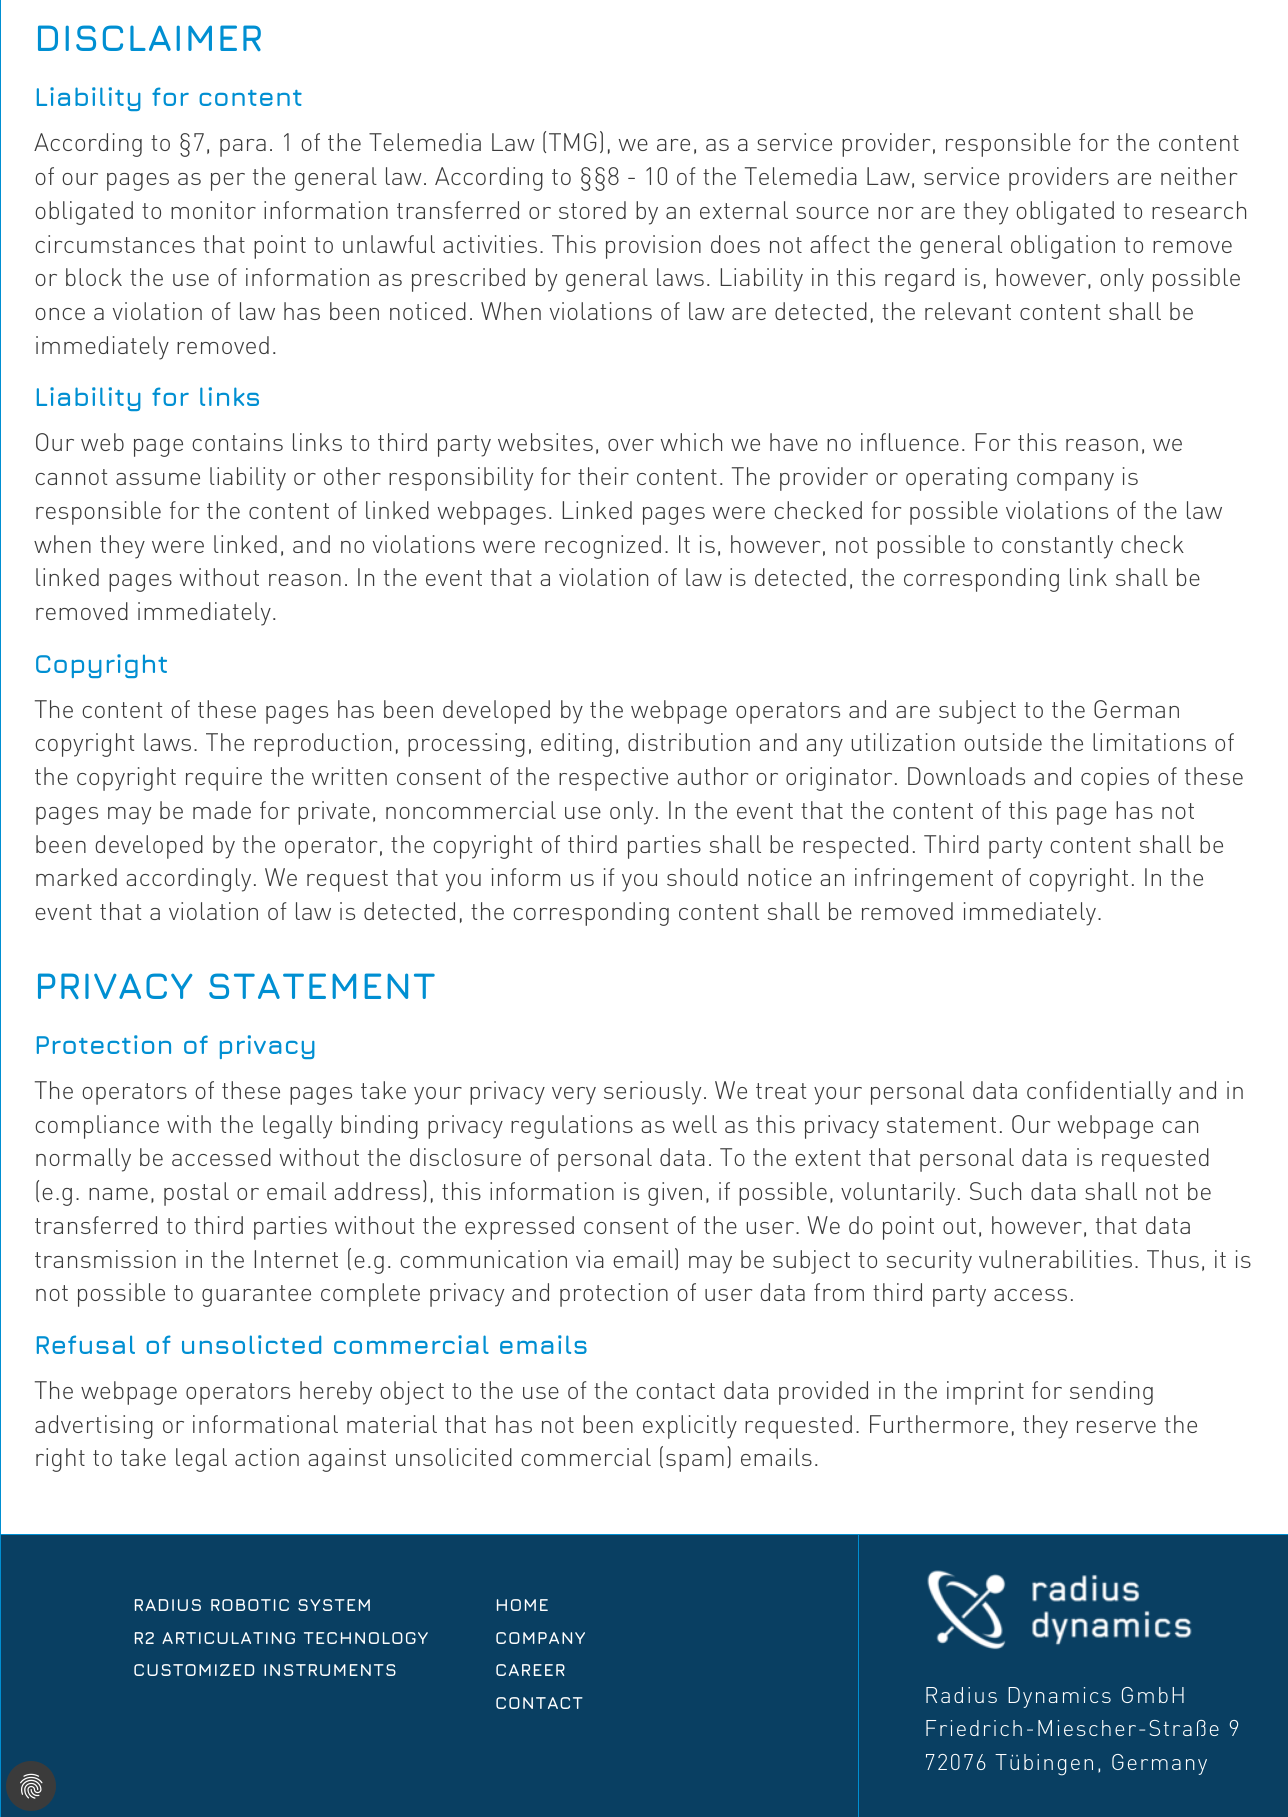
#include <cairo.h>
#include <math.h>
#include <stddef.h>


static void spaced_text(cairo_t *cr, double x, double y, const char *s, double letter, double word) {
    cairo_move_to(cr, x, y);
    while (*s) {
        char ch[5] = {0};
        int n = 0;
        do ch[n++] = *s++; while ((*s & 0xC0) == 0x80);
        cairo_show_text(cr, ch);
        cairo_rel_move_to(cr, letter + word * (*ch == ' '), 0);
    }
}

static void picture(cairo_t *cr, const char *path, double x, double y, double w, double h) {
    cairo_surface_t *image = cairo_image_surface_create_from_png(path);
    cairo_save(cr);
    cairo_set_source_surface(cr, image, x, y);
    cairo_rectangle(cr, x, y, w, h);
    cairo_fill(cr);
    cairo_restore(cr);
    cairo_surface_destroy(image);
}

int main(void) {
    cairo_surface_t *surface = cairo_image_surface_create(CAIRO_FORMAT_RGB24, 1288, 1817);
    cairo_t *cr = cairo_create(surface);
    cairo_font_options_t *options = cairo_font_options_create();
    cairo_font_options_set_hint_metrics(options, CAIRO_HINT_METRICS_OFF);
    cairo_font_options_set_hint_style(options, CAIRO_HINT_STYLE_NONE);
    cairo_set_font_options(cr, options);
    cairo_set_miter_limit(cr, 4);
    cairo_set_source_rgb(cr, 1, 1, 1);
    cairo_paint(cr);
    cairo_rectangle(cr, 0.5, -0.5, 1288, 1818);
    cairo_set_source_rgb(cr, 0, 0.561, 0.824);
    cairo_set_line_width(cr, 1);
    cairo_stroke(cr);
    cairo_select_font_face(cr, "Jura", CAIRO_FONT_SLANT_NORMAL, CAIRO_FONT_WEIGHT_BOLD);
    cairo_set_font_size(cr, 37.5);
    spaced_text(cr, 34, 51, "DISCLAIMER", 0.6, 0);
    cairo_set_font_size(cr, 26.25);
    cairo_move_to(cr, 34, 106);
    cairo_show_text(cr, "Liability for content");
    cairo_select_font_face(cr, "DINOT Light", CAIRO_FONT_SLANT_NORMAL, CAIRO_FONT_WEIGHT_NORMAL);
    cairo_set_font_size(cr, 25);
    cairo_set_source_rgb(cr, 0.231, 0.231, 0.231);
    cairo_move_to(cr, 34, 151);
    cairo_show_text(cr, "According to §7, para. 1 of the Telemedia Law (TMG), we are, as a service provider, responsible for the content");
    cairo_move_to(cr, 34, 185);
    cairo_show_text(cr, "of our pages as per the general law. According to §§8 - 10 of the Telemedia Law, service providers are neither");
    cairo_move_to(cr, 34, 219);
    cairo_show_text(cr, "obligated to monitor information transferred or stored by an external source nor are they obligated to research");
    cairo_move_to(cr, 34, 253);
    cairo_show_text(cr, "circumstances that point to unlawful activities. This provision does not affect the general obligation to remove");
    cairo_move_to(cr, 34, 286);
    cairo_show_text(cr, "or block the use of information as prescribed by general laws. Liability in this regard is, however, only possible");
    cairo_move_to(cr, 34, 320);
    cairo_show_text(cr, "once a violation of law has been noticed. When violations of law are detected, the relevant content shall be");
    cairo_move_to(cr, 34, 354);
    cairo_show_text(cr, "immediately removed.");
    cairo_select_font_face(cr, "Jura", CAIRO_FONT_SLANT_NORMAL, CAIRO_FONT_WEIGHT_BOLD);
    cairo_set_font_size(cr, 26.25);
    cairo_set_source_rgb(cr, 0, 0.561, 0.824);
    cairo_move_to(cr, 34, 406);
    cairo_show_text(cr, "Liability for links");
    cairo_select_font_face(cr, "DINOT Light", CAIRO_FONT_SLANT_NORMAL, CAIRO_FONT_WEIGHT_NORMAL);
    cairo_set_font_size(cr, 25);
    cairo_set_source_rgb(cr, 0.231, 0.231, 0.231);
    cairo_move_to(cr, 34, 451);
    cairo_show_text(cr, "Our web page contains links to third party websites, over which we have no influence. For this reason, we");
    cairo_move_to(cr, 34, 485);
    cairo_show_text(cr, "cannot assume liability or other responsibility for their content. The provider or operating company is");
    cairo_move_to(cr, 34, 519);
    cairo_show_text(cr, "responsible for the content of linked webpages. Linked pages were checked for possible violations of the law");
    cairo_move_to(cr, 34, 553);
    cairo_show_text(cr, "when they were linked, and no violations were recognized. It is, however, not possible to constantly check");
    cairo_move_to(cr, 34, 586);
    cairo_show_text(cr, "linked pages without reason. In the event that a violation of law is detected, the corresponding link shall be");
    cairo_move_to(cr, 34, 620);
    cairo_show_text(cr, "removed immediately.");
    cairo_select_font_face(cr, "Jura", CAIRO_FONT_SLANT_NORMAL, CAIRO_FONT_WEIGHT_BOLD);
    cairo_set_font_size(cr, 26.25);
    cairo_set_source_rgb(cr, 0, 0.561, 0.824);
    cairo_move_to(cr, 34, 673);
    cairo_show_text(cr, "Copyright");
    cairo_select_font_face(cr, "DINOT Light", CAIRO_FONT_SLANT_NORMAL, CAIRO_FONT_WEIGHT_NORMAL);
    cairo_set_font_size(cr, 25);
    cairo_set_source_rgb(cr, 0.231, 0.231, 0.231);
    cairo_move_to(cr, 34, 718);
    cairo_show_text(cr, "The content of these pages has been developed by the webpage operators and are subject to the German");
    cairo_move_to(cr, 34, 751);
    cairo_show_text(cr, "copyright laws. The reproduction, processing, editing, distribution and any utilization outside the limitations of");
    cairo_move_to(cr, 34, 785);
    cairo_show_text(cr, "the copyright require the written consent of the respective author or originator. Downloads and copies of these");
    cairo_move_to(cr, 34, 819);
    cairo_show_text(cr, "pages may be made for private, noncommercial use only. In the event that the content of this page has not");
    cairo_move_to(cr, 34, 853);
    cairo_show_text(cr, "been developed by the operator, the copyright of third parties shall be respected. Third party content shall be");
    cairo_move_to(cr, 34, 886);
    cairo_show_text(cr, "marked accordingly. We request that you inform us if you should notice an infringement of copyright. In the");
    cairo_move_to(cr, 34, 920);
    cairo_show_text(cr, "event that a violation of law is detected, the corresponding content shall be removed immediately.");
    cairo_select_font_face(cr, "Jura", CAIRO_FONT_SLANT_NORMAL, CAIRO_FONT_WEIGHT_BOLD);
    cairo_set_font_size(cr, 37.5);
    cairo_set_source_rgb(cr, 0, 0.561, 0.824);
    spaced_text(cr, 34, 999, "PRIVACY STATEMENT", 0.6, 0);
    cairo_set_font_size(cr, 26.25);
    cairo_move_to(cr, 34, 1054);
    cairo_show_text(cr, "Protection of privacy");
    cairo_select_font_face(cr, "DINOT Light", CAIRO_FONT_SLANT_NORMAL, CAIRO_FONT_WEIGHT_NORMAL);
    cairo_set_font_size(cr, 25);
    cairo_set_source_rgb(cr, 0.231, 0.231, 0.231);
    cairo_move_to(cr, 34, 1099);
    cairo_show_text(cr, "The operators of these pages take your privacy very seriously. We treat your personal data confidentially and in");
    cairo_move_to(cr, 34, 1133);
    cairo_show_text(cr, "compliance with the legally binding privacy regulations as well as this privacy statement. Our webpage can");
    cairo_move_to(cr, 34, 1166);
    cairo_show_text(cr, "normally be accessed without the disclosure of personal data. To the extent that personal data is requested");
    cairo_move_to(cr, 34, 1200);
    cairo_show_text(cr, "(e.g. name, postal or email address), this information is given, if possible, voluntarily. Such data shall not be");
    cairo_move_to(cr, 34, 1234);
    cairo_show_text(cr, "transferred to third parties without the expressed consent of the user. We do point out, however, that data");
    cairo_move_to(cr, 34, 1268);
    cairo_show_text(cr, "transmission in the Internet (e.g. communication via email) may be subject to security vulnerabilities. Thus, it is");
    cairo_move_to(cr, 34, 1301);
    cairo_show_text(cr, "not possible to guarantee complete privacy and protection of user data from third party access.");
    cairo_select_font_face(cr, "Jura", CAIRO_FONT_SLANT_NORMAL, CAIRO_FONT_WEIGHT_BOLD);
    cairo_set_font_size(cr, 26.25);
    cairo_set_source_rgb(cr, 0, 0.561, 0.824);
    cairo_move_to(cr, 34, 1354);
    cairo_show_text(cr, "Refusal of unsolicted commercial emails");
    cairo_select_font_face(cr, "DINOT Light", CAIRO_FONT_SLANT_NORMAL, CAIRO_FONT_WEIGHT_NORMAL);
    cairo_set_font_size(cr, 25);
    cairo_set_source_rgb(cr, 0.231, 0.231, 0.231);
    cairo_move_to(cr, 34, 1399);
    cairo_show_text(cr, "The webpage operators hereby object to the use of the contact data provided in the imprint for sending");
    cairo_move_to(cr, 34, 1433);
    cairo_show_text(cr, "advertising or informational material that has not been explicitly requested. Furthermore, they reserve the");
    cairo_move_to(cr, 34, 1466);
    cairo_show_text(cr, "right to take legal action against unsolicited commercial (spam) emails.");
    cairo_set_source_rgb(cr, 0.039, 0.247, 0.384);
    cairo_rectangle(cr, 1, 1535, 1287, 282);
    cairo_fill(cr);
    cairo_set_source_rgb(cr, 0, 0.561, 0.824);
    cairo_rectangle(cr, 1, 1534, 1287, 1);
    cairo_fill(cr);
    cairo_rectangle(cr, 858, 1535, 1, 282);
    cairo_fill(cr);
    cairo_select_font_face(cr, "Jura", CAIRO_FONT_SLANT_NORMAL, CAIRO_FONT_WEIGHT_BOLD);
    cairo_set_font_size(cr, 17.5);
    cairo_set_source_rgb(cr, 1, 1, 1);
    spaced_text(cr, 133, 1611, "RADIUS ROBOTIC SYSTEM", 0.75, 0);
    spaced_text(cr, 133, 1644, "R2 ARTICULATING TECHNOLOGY", 0.75, 0);
    spaced_text(cr, 133, 1676, "CUSTOMIZED INSTRUMENTS", 0.75, 0);
    spaced_text(cr, 495, 1611, "HOME", 0.75, 0);
    spaced_text(cr, 495, 1644, "COMPANY", 0.75, 0);
    spaced_text(cr, 495, 1676, "CAREER", 0.75, 0);
    spaced_text(cr, 495, 1709, "CONTACT", 0.75, 0);
    picture(cr, "img1.png", 927, 1570, 265, 80);
    cairo_select_font_face(cr, "DINOT Light", CAIRO_FONT_SLANT_NORMAL, CAIRO_FONT_WEIGHT_NORMAL);
    cairo_set_font_size(cr, 22.5);
    spaced_text(cr, 924, 1703, "Radius Dynamics GmbH", 1.25, 0);
    spaced_text(cr, 924, 1736, "Friedrich-Miescher-Straße 9", 1.25, 0);
    spaced_text(cr, 924, 1770, "72076 Tübingen, Germany", 1.25, 0);
    cairo_set_source_rgb(cr, 0.231, 0.231, 0.231);
    cairo_new_path(cr);
    cairo_arc(cr, 31, 1786, 25, 0, 2 * M_PI);
    cairo_fill(cr);
    picture(cr, "img2.png", 20, 1773, 23, 26);
    cairo_surface_write_to_png(surface, "page.png");
    cairo_font_options_destroy(options);
    cairo_destroy(cr);
    cairo_surface_destroy(surface);
    return 0;
}
